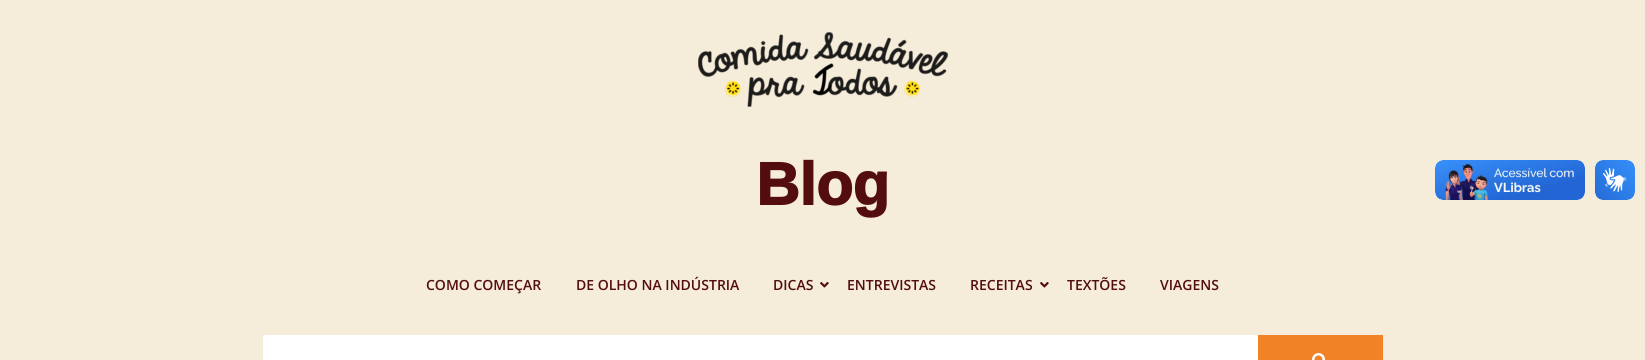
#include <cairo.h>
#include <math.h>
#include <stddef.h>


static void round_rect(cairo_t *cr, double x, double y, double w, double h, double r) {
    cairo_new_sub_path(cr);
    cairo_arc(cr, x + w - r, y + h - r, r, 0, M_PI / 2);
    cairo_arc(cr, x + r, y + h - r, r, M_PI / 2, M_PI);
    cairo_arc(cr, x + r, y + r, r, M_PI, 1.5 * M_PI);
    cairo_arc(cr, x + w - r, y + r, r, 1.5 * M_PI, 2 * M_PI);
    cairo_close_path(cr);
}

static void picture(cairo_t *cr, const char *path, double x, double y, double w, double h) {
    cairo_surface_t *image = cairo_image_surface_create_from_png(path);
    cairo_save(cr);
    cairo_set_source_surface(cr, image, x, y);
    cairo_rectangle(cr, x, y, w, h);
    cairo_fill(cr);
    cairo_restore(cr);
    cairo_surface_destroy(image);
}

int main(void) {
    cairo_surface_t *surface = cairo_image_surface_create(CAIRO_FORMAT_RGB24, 1645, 360);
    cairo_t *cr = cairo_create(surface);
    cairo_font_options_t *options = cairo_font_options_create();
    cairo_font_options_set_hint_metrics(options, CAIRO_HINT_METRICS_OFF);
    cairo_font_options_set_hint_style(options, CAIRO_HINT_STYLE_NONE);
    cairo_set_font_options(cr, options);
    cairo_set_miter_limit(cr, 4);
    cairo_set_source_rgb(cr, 0.961, 0.925, 0.855);
    cairo_paint(cr);
    picture(cr, "img1.png", 698, 32, 250, 75);
    cairo_select_font_face(cr, "Ramabhadra", CAIRO_FONT_SLANT_NORMAL, CAIRO_FONT_WEIGHT_BOLD);
    cairo_set_font_size(cr, 60);
    cairo_set_source_rgb(cr, 0.329, 0.051, 0.051);
    cairo_move_to(cr, 756, 205);
    cairo_show_text(cr, "Blog");
    cairo_select_font_face(cr, "Open Sans SemiBold", CAIRO_FONT_SLANT_NORMAL, CAIRO_FONT_WEIGHT_NORMAL);
    cairo_set_font_size(cr, 14);
    cairo_move_to(cr, 426, 290);
    cairo_show_text(cr, "COMO COMEÇAR");
    cairo_move_to(cr, 576, 290);
    cairo_show_text(cr, "DE OLHO NA INDÚSTRIA");
    cairo_move_to(cr, 773, 290);
    cairo_show_text(cr, "DICAS");
    picture(cr, "img2.png", 820, 282, 9, 6);
    cairo_move_to(cr, 847, 290);
    cairo_show_text(cr, "ENTREVISTAS");
    cairo_move_to(cr, 970, 290);
    cairo_show_text(cr, "RECEITAS");
    picture(cr, "img2.png", 1040, 282, 9, 6);
    cairo_move_to(cr, 1067, 290);
    cairo_show_text(cr, "TEXTÕES");
    cairo_move_to(cr, 1160, 290);
    cairo_show_text(cr, "VIAGENS");
    cairo_set_source_rgb(cr, 1, 1, 1);
    round_rect(cr, 263, 335, 995, 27, 2);
    cairo_fill(cr);
    cairo_set_source_rgb(cr, 0.945, 0.51, 0.145);
    cairo_rectangle(cr, 1258, 335, 125, 25);
    cairo_fill(cr);
    picture(cr, "img3.png", 1312, 353, 13, 7);
    picture(cr, "img4.png", 1435, 160, 150, 40);
    picture(cr, "img5.png", 1595, 160, 40, 40);
    cairo_surface_write_to_png(surface, "page.png");
    cairo_font_options_destroy(options);
    cairo_destroy(cr);
    cairo_surface_destroy(surface);
    return 0;
}
